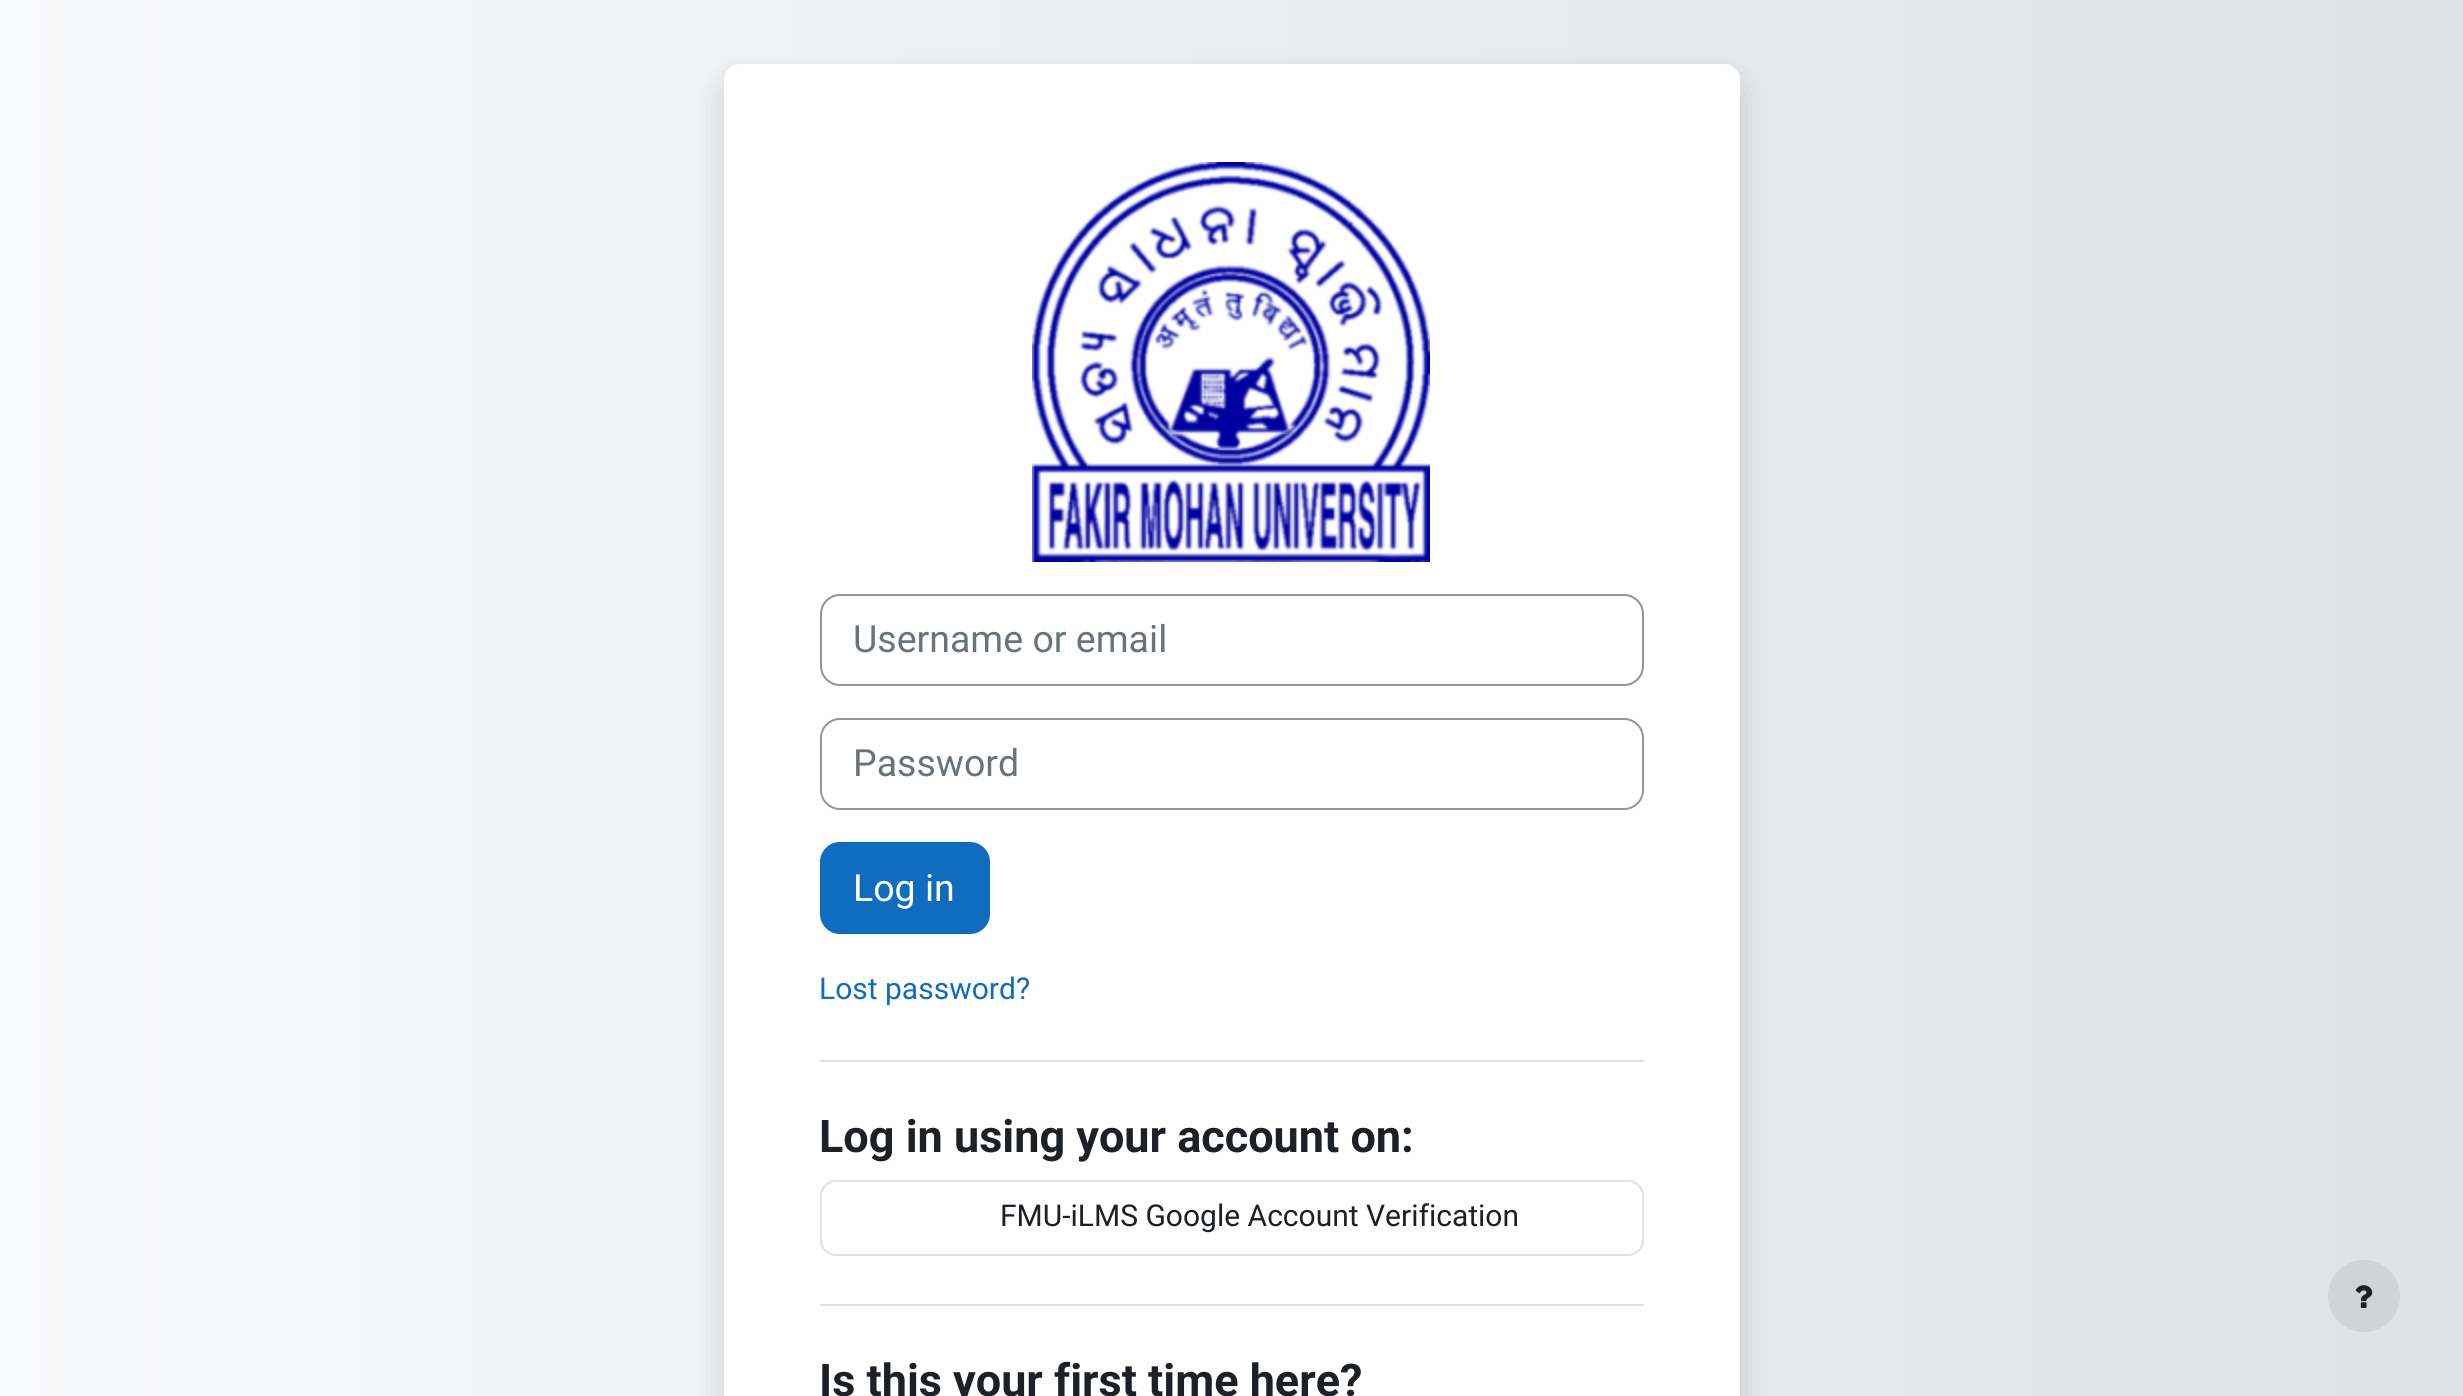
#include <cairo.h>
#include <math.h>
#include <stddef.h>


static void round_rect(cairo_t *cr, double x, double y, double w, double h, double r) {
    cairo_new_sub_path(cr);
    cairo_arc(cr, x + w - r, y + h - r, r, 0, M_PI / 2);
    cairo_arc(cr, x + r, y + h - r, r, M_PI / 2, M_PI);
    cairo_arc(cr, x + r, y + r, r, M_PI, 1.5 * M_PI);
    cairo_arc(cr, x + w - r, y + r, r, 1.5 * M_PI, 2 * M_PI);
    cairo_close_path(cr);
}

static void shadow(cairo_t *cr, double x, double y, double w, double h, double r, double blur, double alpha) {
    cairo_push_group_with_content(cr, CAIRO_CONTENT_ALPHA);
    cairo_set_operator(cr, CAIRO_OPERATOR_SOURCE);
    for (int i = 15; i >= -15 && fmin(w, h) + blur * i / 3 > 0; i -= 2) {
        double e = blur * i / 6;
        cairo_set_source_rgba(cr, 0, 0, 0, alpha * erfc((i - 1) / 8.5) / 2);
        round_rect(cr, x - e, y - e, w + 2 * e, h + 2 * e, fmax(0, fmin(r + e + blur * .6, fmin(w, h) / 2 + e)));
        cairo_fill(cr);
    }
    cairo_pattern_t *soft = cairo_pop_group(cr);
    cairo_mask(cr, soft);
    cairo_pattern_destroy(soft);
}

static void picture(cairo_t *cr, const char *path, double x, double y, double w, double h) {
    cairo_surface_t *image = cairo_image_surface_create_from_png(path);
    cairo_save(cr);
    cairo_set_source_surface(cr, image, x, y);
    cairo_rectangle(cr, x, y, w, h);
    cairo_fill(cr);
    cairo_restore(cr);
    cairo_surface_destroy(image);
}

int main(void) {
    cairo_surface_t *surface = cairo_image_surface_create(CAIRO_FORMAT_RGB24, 2463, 1396);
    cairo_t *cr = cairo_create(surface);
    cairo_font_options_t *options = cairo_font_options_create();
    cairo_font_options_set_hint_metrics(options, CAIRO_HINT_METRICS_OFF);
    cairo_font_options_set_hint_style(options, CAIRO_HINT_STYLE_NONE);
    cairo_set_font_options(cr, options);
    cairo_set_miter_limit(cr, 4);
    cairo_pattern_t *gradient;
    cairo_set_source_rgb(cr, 1, 1, 1);
    cairo_paint(cr);
    gradient = cairo_pattern_create_linear(0, 952, 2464, 952);
    cairo_pattern_add_color_stop_rgba(gradient, 0, 0.973, 0.976, 0.98, 1);
    cairo_pattern_add_color_stop_rgba(gradient, 1, 0.871, 0.886, 0.902, 1);
    cairo_set_source(cr, gradient);
    cairo_pattern_destroy(gradient);
    cairo_rectangle(cr, 0, 0, 2463, 1396);
    cairo_fill(cr);
    cairo_set_source_rgb(cr, 0, 0, 0);
    shadow(cr, 724, 80, 1016, 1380, 16, 16, 0.15);
    cairo_set_source_rgb(cr, 1, 1, 1);
    round_rect(cr, 724, 64, 1016, 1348, 16);
    cairo_fill(cr);
    picture(cr, "img1.png", 1032, 162, 398, 400);
    round_rect(cr, 821, 595, 822, 90, 19);
    cairo_set_source_rgb(cr, 0.561, 0.584, 0.62);
    cairo_stroke(cr);
    cairo_select_font_face(cr, "Roboto", CAIRO_FONT_SLANT_NORMAL, CAIRO_FONT_WEIGHT_NORMAL);
    cairo_set_font_size(cr, 37.5);
    cairo_set_source_rgb(cr, 0.416, 0.451, 0.482);
    cairo_move_to(cr, 853, 652);
    cairo_show_text(cr, "Username or email");
    round_rect(cr, 821, 719, 822, 90, 19);
    cairo_set_source_rgb(cr, 0.561, 0.584, 0.62);
    cairo_stroke(cr);
    cairo_set_source_rgb(cr, 0.416, 0.451, 0.482);
    cairo_move_to(cr, 853, 776);
    cairo_show_text(cr, "Password");
    cairo_set_source_rgb(cr, 0.059, 0.424, 0.749);
    round_rect(cr, 821, 843, 168, 90, 19);
    cairo_fill_preserve(cr);
    cairo_stroke(cr);
    cairo_set_source_rgb(cr, 1, 1, 1);
    cairo_move_to(cr, 853, 901);
    cairo_show_text(cr, "Log in");
    cairo_set_font_size(cr, 30);
    cairo_set_source_rgb(cr, 0.059, 0.424, 0.749);
    cairo_move_to(cr, 819, 999);
    cairo_show_text(cr, "Lost password?");
    cairo_set_source_rgb(cr, 0.871, 0.886, 0.902);
    cairo_rectangle(cr, 820, 1060, 824, 2);
    cairo_fill(cr);
    cairo_select_font_face(cr, "Roboto", CAIRO_FONT_SLANT_NORMAL, CAIRO_FONT_WEIGHT_BOLD);
    cairo_set_font_size(cr, 45);
    cairo_set_source_rgb(cr, 0.114, 0.129, 0.145);
    cairo_move_to(cr, 819, 1152);
    cairo_show_text(cr, "Log in using your account on:");
    round_rect(cr, 821, 1181, 822, 74, 15);
    cairo_set_source_rgb(cr, 0.871, 0.886, 0.902);
    cairo_stroke(cr);
    cairo_select_font_face(cr, "Roboto", CAIRO_FONT_SLANT_NORMAL, CAIRO_FONT_WEIGHT_NORMAL);
    cairo_set_font_size(cr, 30);
    cairo_set_source_rgb(cr, 0.114, 0.129, 0.145);
    cairo_move_to(cr, 1000, 1226);
    cairo_show_text(cr, "FMU-iLMS Google Account Verification");
    cairo_set_source_rgb(cr, 0.871, 0.886, 0.902);
    cairo_rectangle(cr, 820, 1304, 824, 2);
    cairo_fill(cr);
    cairo_select_font_face(cr, "Roboto", CAIRO_FONT_SLANT_NORMAL, CAIRO_FONT_WEIGHT_BOLD);
    cairo_set_font_size(cr, 45);
    cairo_set_source_rgb(cr, 0.114, 0.129, 0.145);
    cairo_move_to(cr, 819, 1396);
    cairo_show_text(cr, "Is this your first time here?");
    cairo_set_source_rgb(cr, 0.808, 0.831, 0.855);
    cairo_new_path(cr);
    cairo_arc(cr, 2364, 1296, 36, 0, 2 * M_PI);
    cairo_fill(cr);
    picture(cr, "img2.png", 2355, 1285, 18, 23);
    cairo_surface_write_to_png(surface, "page.png");
    cairo_font_options_destroy(options);
    cairo_destroy(cr);
    cairo_surface_destroy(surface);
    return 0;
}
